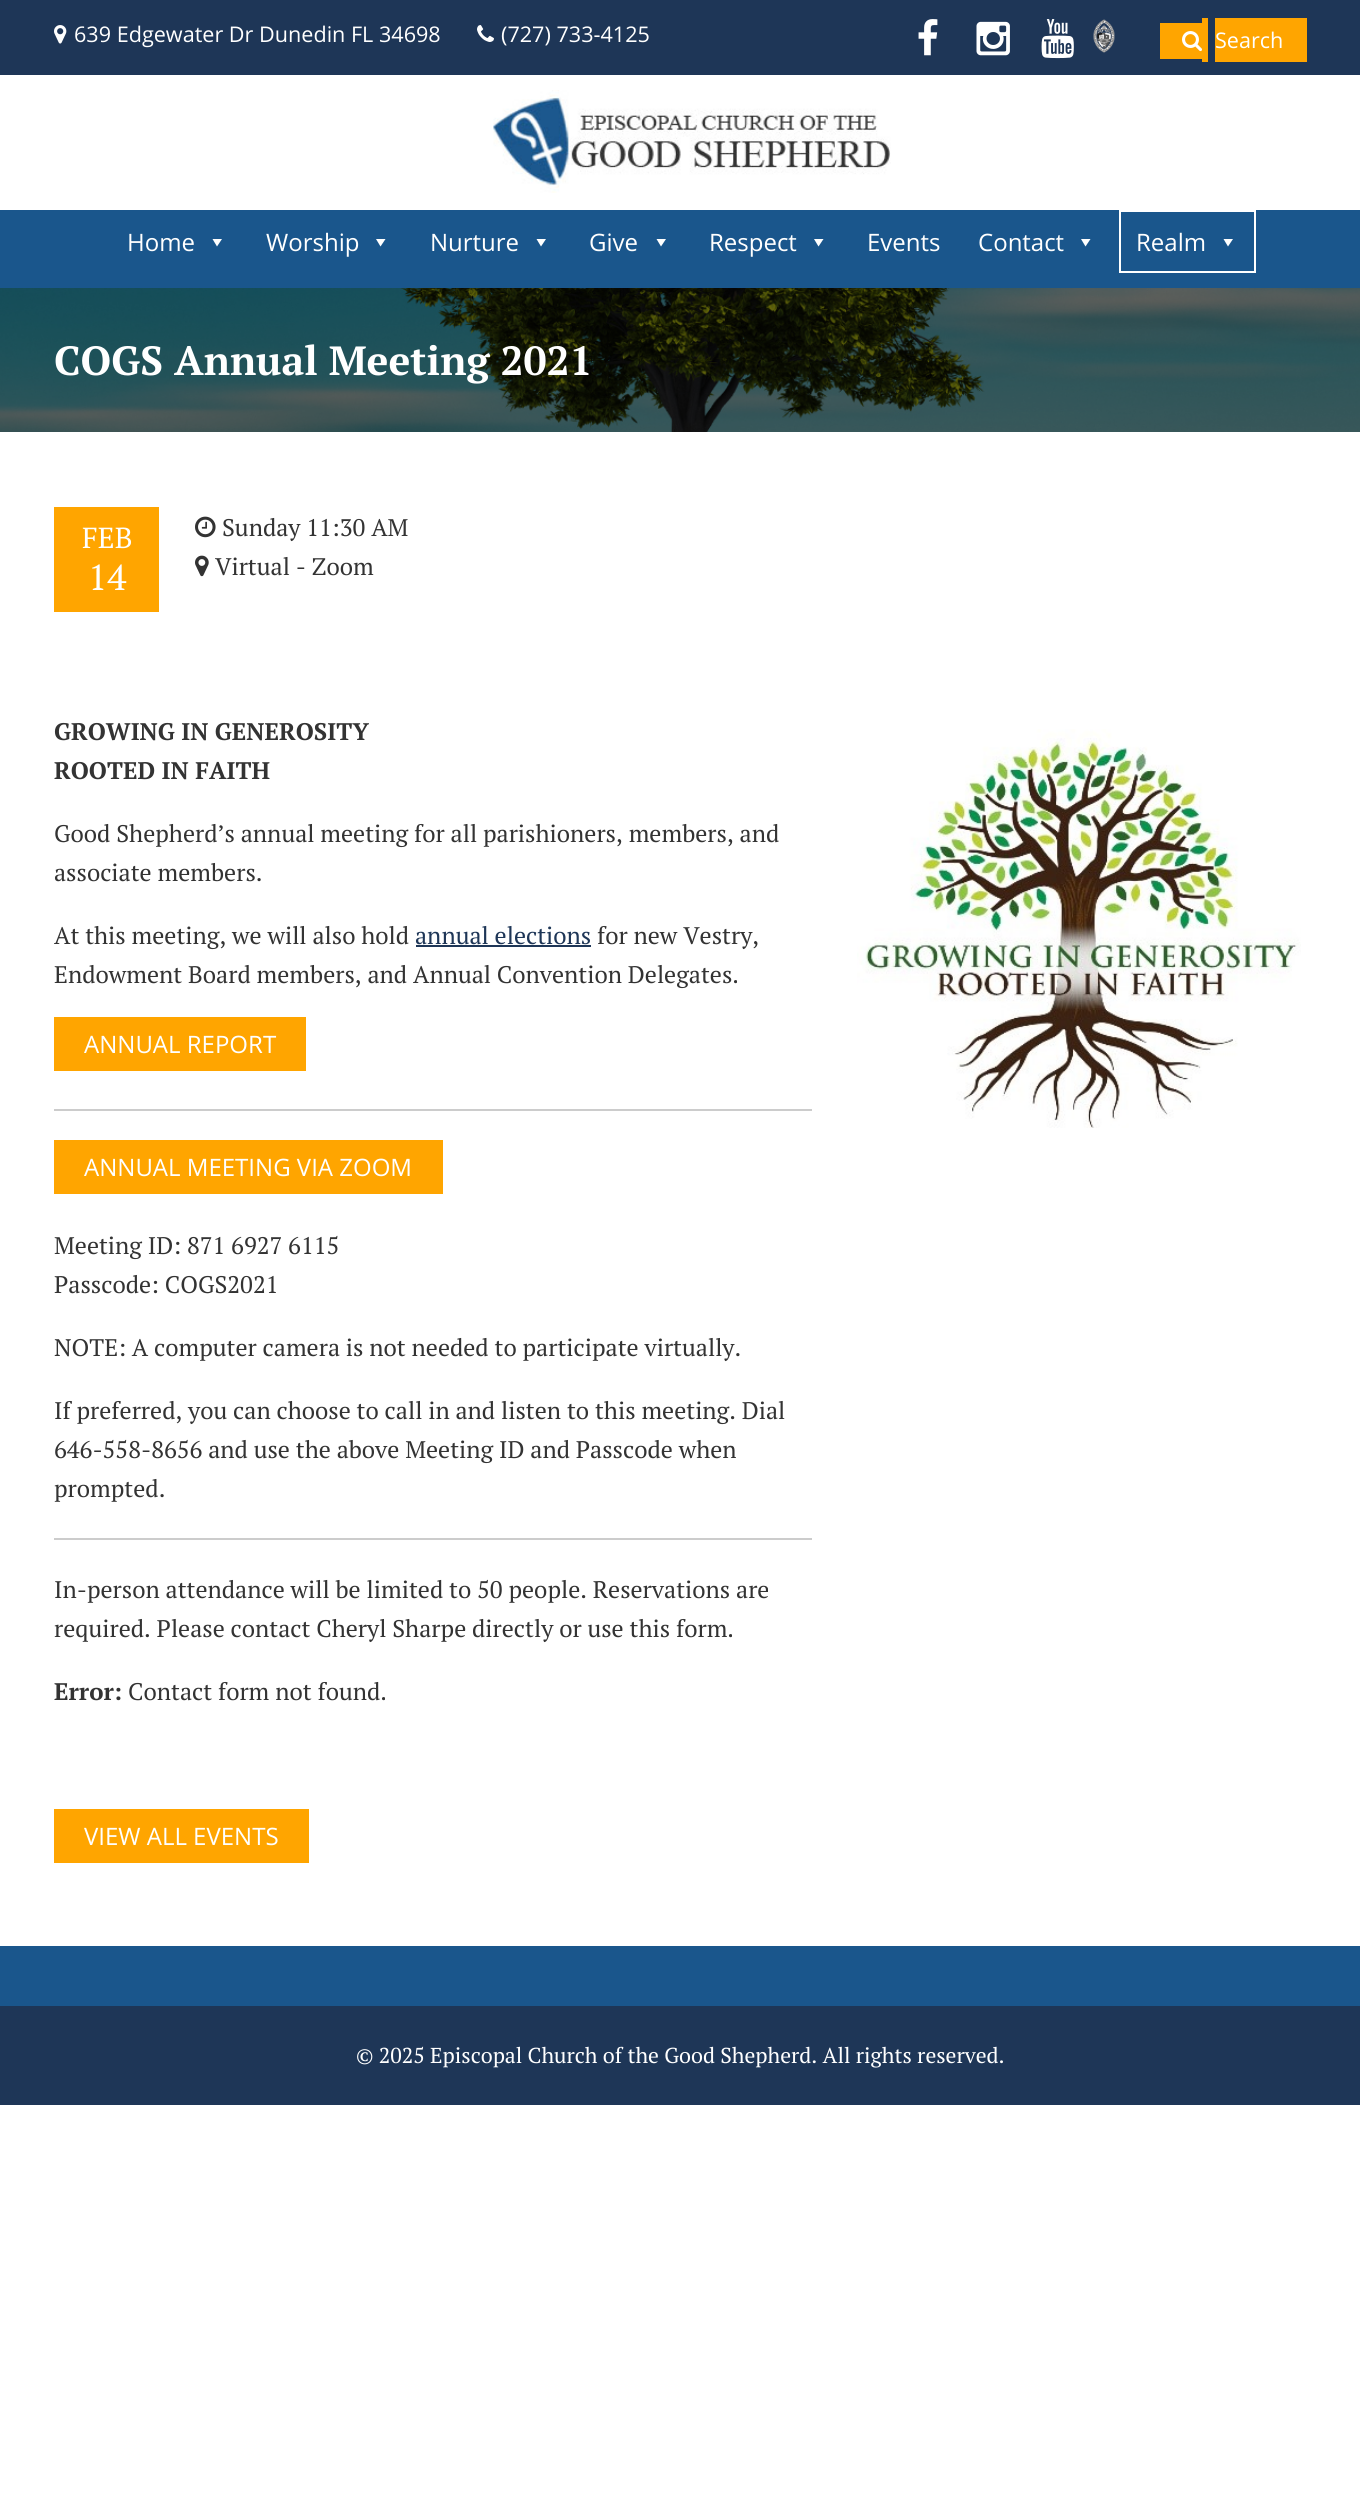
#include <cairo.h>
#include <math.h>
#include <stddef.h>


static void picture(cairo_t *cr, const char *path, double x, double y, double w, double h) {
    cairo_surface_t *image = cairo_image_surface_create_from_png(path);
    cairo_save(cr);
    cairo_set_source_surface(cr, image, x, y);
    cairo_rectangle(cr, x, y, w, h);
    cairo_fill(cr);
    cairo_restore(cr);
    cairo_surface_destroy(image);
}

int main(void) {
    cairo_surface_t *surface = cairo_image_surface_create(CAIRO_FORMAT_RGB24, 1360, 2514);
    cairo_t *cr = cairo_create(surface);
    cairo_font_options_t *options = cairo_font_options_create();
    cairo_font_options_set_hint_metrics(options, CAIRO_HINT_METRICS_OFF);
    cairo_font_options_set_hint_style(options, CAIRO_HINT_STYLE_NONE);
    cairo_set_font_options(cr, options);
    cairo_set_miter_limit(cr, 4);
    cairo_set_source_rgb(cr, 1, 1, 1);
    cairo_paint(cr);
    cairo_set_source_rgb(cr, 0.118, 0.212, 0.341);
    cairo_rectangle(cr, 0, 0, 1360, 75);
    cairo_fill(cr);
    picture(cr, "img1.png", 54, 25, 13, 19);
    cairo_select_font_face(cr, "Open Sans", CAIRO_FONT_SLANT_NORMAL, CAIRO_FONT_WEIGHT_NORMAL);
    cairo_set_font_size(cr, 21.6);
    cairo_set_source_rgb(cr, 1, 1, 1);
    cairo_move_to(cr, 74, 42);
    cairo_show_text(cr, "639 Edgewater Dr Dunedin FL 34698");
    picture(cr, "img2.png", 477, 25, 17, 17);
    cairo_move_to(cr, 501, 42);
    cairo_show_text(cr, "(727) 733-4125");
    picture(cr, "img3.png", 918, 19, 20, 37);
    picture(cr, "img4.png", 976, 21, 34, 35);
    picture(cr, "img5.png", 1041, 19, 33, 40);
    picture(cr, "img6.png", 1093, 19, 22, 34);
    cairo_set_source_rgb(cr, 1, 0.647, 0);
    cairo_rectangle(cr, 1160, 23, 42, 36);
    cairo_fill(cr);
    cairo_rectangle(cr, 1202, 18, 6, 44);
    cairo_fill(cr);
    cairo_rectangle(cr, 1215, 18, 92, 44);
    cairo_fill(cr);
    picture(cr, "img7.png", 1182, 31, 20, 21);
    cairo_set_source_rgb(cr, 1, 1, 1);
    cairo_move_to(cr, 1215, 48);
    cairo_show_text(cr, "Search");
    cairo_set_source_rgb(cr, 0.102, 0.337, 0.549);
    cairo_rectangle(cr, 0, 210, 1360, 78);
    cairo_fill(cr);
    picture(cr, "img8.png", 493, 90, 398, 103);
    cairo_set_font_size(cr, 24);
    cairo_set_source_rgb(cr, 1, 1, 1);
    cairo_move_to(cr, 127, 251);
    cairo_show_text(cr, "Home");
    cairo_new_path(cr);
    cairo_move_to(cr, 222, 239);
    cairo_line_to(cr, 217, 246.5);
    cairo_line_to(cr, 212.5, 239);
    cairo_close_path(cr);
    cairo_fill(cr);
    cairo_move_to(cr, 266, 251);
    cairo_show_text(cr, "Worship");
    cairo_new_path(cr);
    cairo_move_to(cr, 385.5, 239);
    cairo_line_to(cr, 380.5, 246.5);
    cairo_line_to(cr, 376, 239);
    cairo_close_path(cr);
    cairo_fill(cr);
    cairo_move_to(cr, 430, 251);
    cairo_show_text(cr, "Nurture");
    cairo_new_path(cr);
    cairo_move_to(cr, 546, 239);
    cairo_line_to(cr, 541, 246.5);
    cairo_line_to(cr, 536.5, 239);
    cairo_close_path(cr);
    cairo_fill(cr);
    cairo_move_to(cr, 589, 251);
    cairo_show_text(cr, "Give");
    cairo_new_path(cr);
    cairo_move_to(cr, 666, 239);
    cairo_line_to(cr, 661, 246.5);
    cairo_line_to(cr, 656.5, 239);
    cairo_close_path(cr);
    cairo_fill(cr);
    cairo_move_to(cr, 709, 251);
    cairo_show_text(cr, "Respect");
    cairo_new_path(cr);
    cairo_move_to(cr, 823.5, 239);
    cairo_line_to(cr, 818.5, 246.5);
    cairo_line_to(cr, 814, 239);
    cairo_close_path(cr);
    cairo_fill(cr);
    cairo_move_to(cr, 867, 251);
    cairo_show_text(cr, "Events");
    cairo_move_to(cr, 978, 251);
    cairo_show_text(cr, "Contact");
    cairo_new_path(cr);
    cairo_move_to(cr, 1090.5, 239);
    cairo_line_to(cr, 1085.5, 246.5);
    cairo_line_to(cr, 1081, 239);
    cairo_close_path(cr);
    cairo_fill(cr);
    cairo_rectangle(cr, 1120, 211, 135, 61);
    cairo_stroke(cr);
    cairo_move_to(cr, 1136, 251);
    cairo_show_text(cr, "Realm");
    cairo_new_path(cr);
    cairo_move_to(cr, 1233, 239);
    cairo_line_to(cr, 1228, 246.5);
    cairo_line_to(cr, 1223.5, 239);
    cairo_close_path(cr);
    cairo_fill(cr);
    picture(cr, "img9.png", 0, 288, 1360, 144);
    cairo_select_font_face(cr, "PT Serif", CAIRO_FONT_SLANT_NORMAL, CAIRO_FONT_WEIGHT_BOLD);
    cairo_set_font_size(cr, 40.75);
    cairo_move_to(cr, 54, 375);
    cairo_show_text(cr, "COGS Annual Meeting 2021");
    cairo_set_source_rgb(cr, 1, 0.647, 0);
    cairo_rectangle(cr, 54, 507, 105, 105);
    cairo_fill(cr);
    cairo_select_font_face(cr, "PT Serif", CAIRO_FONT_SLANT_NORMAL, CAIRO_FONT_WEIGHT_NORMAL);
    cairo_set_font_size(cr, 29);
    cairo_set_source_rgb(cr, 1, 1, 1);
    cairo_move_to(cr, 82, 548);
    cairo_show_text(cr, "FEB");
    cairo_set_font_size(cr, 36);
    cairo_move_to(cr, 88, 590);
    cairo_show_text(cr, "14");
    picture(cr, "img10.png", 195, 516, 21, 22);
    cairo_set_font_size(cr, 24);
    cairo_set_source_rgb(cr, 0.2, 0.2, 0.2);
    cairo_move_to(cr, 222, 536);
    cairo_show_text(cr, "Sunday 11:30 AM");
    picture(cr, "img11.png", 195, 555, 14, 22);
    cairo_move_to(cr, 215, 575);
    cairo_show_text(cr, "Virtual - Zoom");
    cairo_select_font_face(cr, "PT Serif", CAIRO_FONT_SLANT_NORMAL, CAIRO_FONT_WEIGHT_BOLD);
    cairo_move_to(cr, 54, 740);
    cairo_show_text(cr, "GROWING IN GENEROSITY");
    cairo_move_to(cr, 54, 779);
    cairo_show_text(cr, "ROOTED IN FAITH");
    cairo_select_font_face(cr, "PT Serif", CAIRO_FONT_SLANT_NORMAL, CAIRO_FONT_WEIGHT_NORMAL);
    cairo_move_to(cr, 54, 842);
    cairo_show_text(cr, "Good Shepherd’s annual meeting for all parishioners, members, and");
    cairo_move_to(cr, 54, 881);
    cairo_show_text(cr, "associate members.");
    cairo_move_to(cr, 54, 944);
    cairo_show_text(cr, "At this meeting, we will also hold");
    cairo_set_source_rgb(cr, 0.118, 0.212, 0.341);
    cairo_move_to(cr, 415, 944);
    cairo_show_text(cr, "annual elections");
    cairo_rectangle(cr, 416, 945, 175, 2);
    cairo_fill(cr);
    cairo_set_source_rgb(cr, 0.2, 0.2, 0.2);
    cairo_move_to(cr, 597, 944);
    cairo_show_text(cr, "for new Vestry,");
    cairo_move_to(cr, 54, 983);
    cairo_show_text(cr, "Endowment Board members, and Annual Convention Delegates.");
    cairo_set_source_rgb(cr, 1, 0.647, 0);
    cairo_rectangle(cr, 54, 1017, 252, 54);
    cairo_fill(cr);
    cairo_select_font_face(cr, "Open Sans", CAIRO_FONT_SLANT_NORMAL, CAIRO_FONT_WEIGHT_NORMAL);
    cairo_set_source_rgb(cr, 1, 1, 1);
    cairo_move_to(cr, 84, 1053);
    cairo_show_text(cr, "ANNUAL REPORT");
    cairo_set_source_rgb(cr, 0.8, 0.8, 0.8);
    cairo_rectangle(cr, 54, 1109, 758, 2);
    cairo_fill(cr);
    cairo_set_source_rgb(cr, 1, 0.647, 0);
    cairo_rectangle(cr, 54, 1140, 389, 54);
    cairo_fill(cr);
    cairo_set_source_rgb(cr, 1, 1, 1);
    cairo_move_to(cr, 84, 1176);
    cairo_show_text(cr, "ANNUAL MEETING VIA ZOOM");
    cairo_select_font_face(cr, "PT Serif", CAIRO_FONT_SLANT_NORMAL, CAIRO_FONT_WEIGHT_NORMAL);
    cairo_set_source_rgb(cr, 0.2, 0.2, 0.2);
    cairo_move_to(cr, 54, 1254);
    cairo_show_text(cr, "Meeting ID: 871 6927 6115");
    cairo_move_to(cr, 54, 1293);
    cairo_show_text(cr, "Passcode: COGS2021");
    cairo_move_to(cr, 54, 1356);
    cairo_show_text(cr, "NOTE: A computer camera is not needed to participate virtually.");
    cairo_move_to(cr, 54, 1419);
    cairo_show_text(cr, "If preferred, you can choose to call in and listen to this meeting. Dial");
    cairo_move_to(cr, 54, 1458);
    cairo_show_text(cr, "646-558-8656 and use the above Meeting ID and Passcode when");
    cairo_move_to(cr, 54, 1497);
    cairo_show_text(cr, "prompted.");
    cairo_set_source_rgb(cr, 0.8, 0.8, 0.8);
    cairo_rectangle(cr, 54, 1538, 758, 2);
    cairo_fill(cr);
    cairo_set_source_rgb(cr, 0.2, 0.2, 0.2);
    cairo_move_to(cr, 54, 1598);
    cairo_show_text(cr, "In-person attendance will be limited to 50 people. Reservations are");
    cairo_move_to(cr, 54, 1637);
    cairo_show_text(cr, "required. Please contact Cheryl Sharpe directly or use this form.");
    cairo_select_font_face(cr, "PT Serif", CAIRO_FONT_SLANT_NORMAL, CAIRO_FONT_WEIGHT_BOLD);
    cairo_move_to(cr, 54, 1700);
    cairo_show_text(cr, "Error:");
    cairo_select_font_face(cr, "PT Serif", CAIRO_FONT_SLANT_NORMAL, CAIRO_FONT_WEIGHT_NORMAL);
    cairo_move_to(cr, 128, 1700);
    cairo_show_text(cr, "Contact form not found.");
    picture(cr, "img12.png", 857, 729, 444, 399);
    cairo_set_source_rgb(cr, 1, 0.647, 0);
    cairo_rectangle(cr, 54, 1809, 255, 54);
    cairo_fill(cr);
    cairo_select_font_face(cr, "Open Sans", CAIRO_FONT_SLANT_NORMAL, CAIRO_FONT_WEIGHT_NORMAL);
    cairo_set_source_rgb(cr, 1, 1, 1);
    cairo_move_to(cr, 84, 1845);
    cairo_show_text(cr, "VIEW ALL EVENTS");
    cairo_set_source_rgb(cr, 0.102, 0.337, 0.549);
    cairo_rectangle(cr, 0, 1946, 1360, 60);
    cairo_fill(cr);
    cairo_set_source_rgb(cr, 0.118, 0.212, 0.341);
    cairo_rectangle(cr, 0, 2006, 1360, 99);
    cairo_fill(cr);
    cairo_select_font_face(cr, "PT Serif", CAIRO_FONT_SLANT_NORMAL, CAIRO_FONT_WEIGHT_NORMAL);
    cairo_set_font_size(cr, 21.6);
    cairo_set_source_rgb(cr, 1, 1, 1);
    cairo_move_to(cr, 356, 2063);
    cairo_show_text(cr, "© 2025 Episcopal Church of the Good Shepherd. All rights reserved.");
    cairo_surface_write_to_png(surface, "page.png");
    cairo_font_options_destroy(options);
    cairo_destroy(cr);
    cairo_surface_destroy(surface);
    return 0;
}
